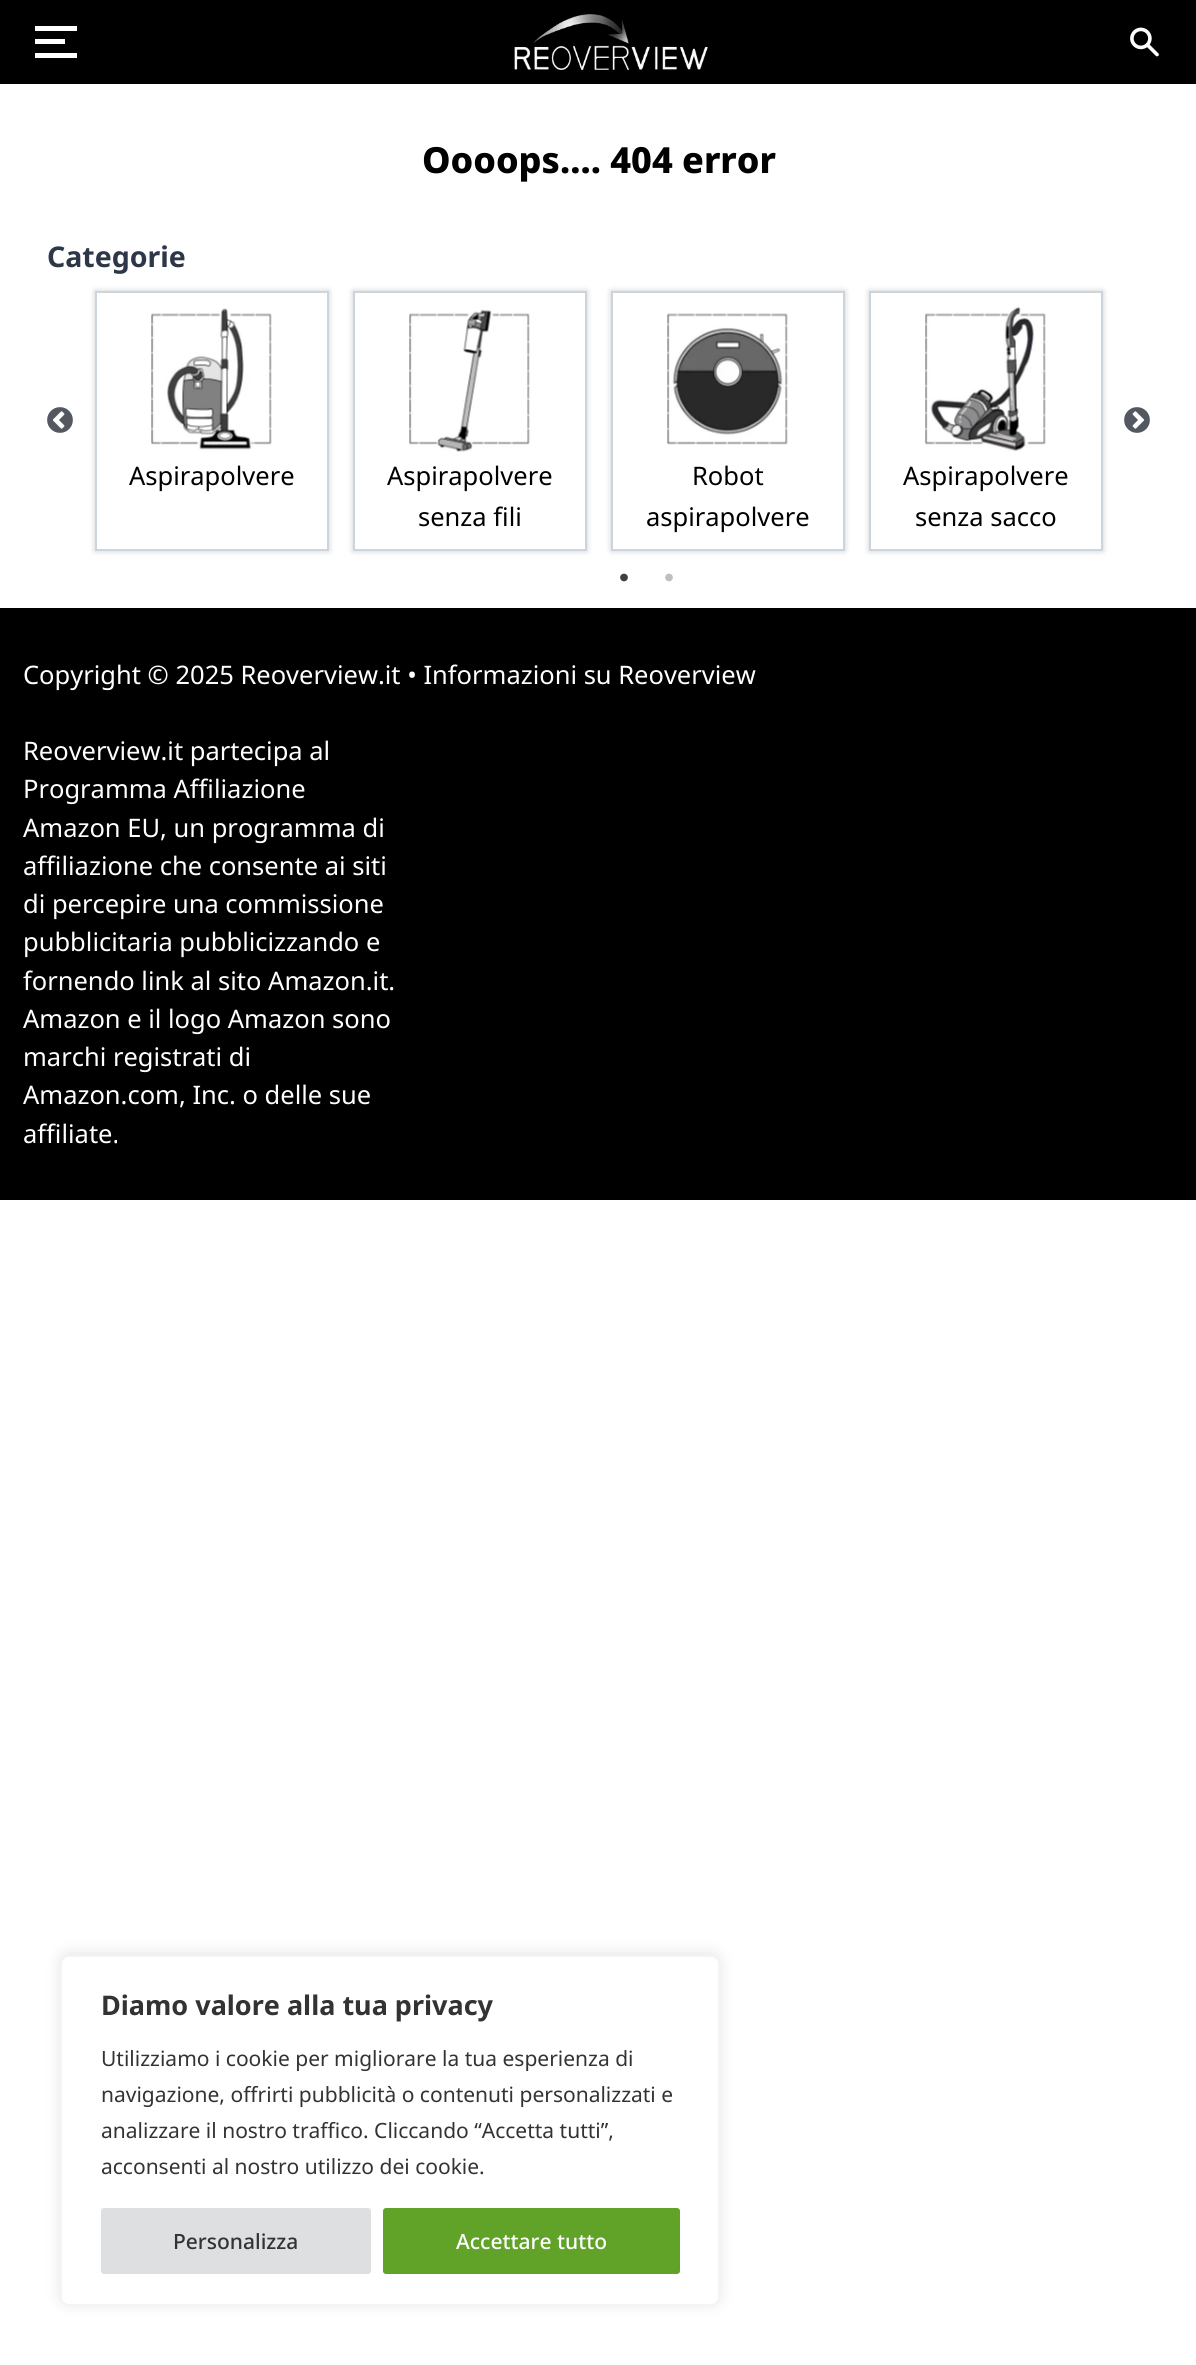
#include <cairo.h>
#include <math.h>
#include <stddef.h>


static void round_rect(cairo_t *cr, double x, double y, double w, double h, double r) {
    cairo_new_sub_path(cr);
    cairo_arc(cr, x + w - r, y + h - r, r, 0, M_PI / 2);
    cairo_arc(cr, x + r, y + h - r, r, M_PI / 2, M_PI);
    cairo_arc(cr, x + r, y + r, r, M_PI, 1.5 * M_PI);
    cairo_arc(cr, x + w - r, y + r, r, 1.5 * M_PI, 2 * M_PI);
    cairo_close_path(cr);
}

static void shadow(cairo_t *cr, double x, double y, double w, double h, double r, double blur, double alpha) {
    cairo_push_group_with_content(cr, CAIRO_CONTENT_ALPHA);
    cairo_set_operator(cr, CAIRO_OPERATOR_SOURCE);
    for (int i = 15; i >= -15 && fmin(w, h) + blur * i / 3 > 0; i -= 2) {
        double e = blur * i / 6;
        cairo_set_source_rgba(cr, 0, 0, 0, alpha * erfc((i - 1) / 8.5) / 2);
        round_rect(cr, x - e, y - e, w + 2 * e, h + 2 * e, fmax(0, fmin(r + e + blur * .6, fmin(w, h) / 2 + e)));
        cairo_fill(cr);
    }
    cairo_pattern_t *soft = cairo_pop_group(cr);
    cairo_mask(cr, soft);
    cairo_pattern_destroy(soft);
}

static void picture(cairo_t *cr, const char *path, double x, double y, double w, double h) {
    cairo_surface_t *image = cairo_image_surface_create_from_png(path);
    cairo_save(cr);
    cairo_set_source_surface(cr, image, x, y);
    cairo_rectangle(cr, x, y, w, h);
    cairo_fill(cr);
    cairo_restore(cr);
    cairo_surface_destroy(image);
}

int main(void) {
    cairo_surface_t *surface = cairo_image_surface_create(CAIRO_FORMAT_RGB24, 1196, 2365);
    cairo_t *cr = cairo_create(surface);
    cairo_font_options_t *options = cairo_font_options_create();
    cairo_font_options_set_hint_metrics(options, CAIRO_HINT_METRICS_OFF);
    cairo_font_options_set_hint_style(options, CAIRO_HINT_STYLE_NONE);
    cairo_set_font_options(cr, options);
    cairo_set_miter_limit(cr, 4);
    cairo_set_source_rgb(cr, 1, 1, 1);
    cairo_paint(cr);
    cairo_set_source_rgb(cr, 0, 0, 0);
    cairo_rectangle(cr, 0, 0, 1196, 84);
    cairo_fill(cr);
    cairo_set_source_rgb(cr, 1, 1, 1);
    cairo_rectangle(cr, 35, 26, 42, 5);
    cairo_fill(cr);
    cairo_rectangle(cr, 35, 39, 30, 5);
    cairo_fill(cr);
    cairo_rectangle(cr, 35, 53, 42, 5);
    cairo_fill(cr);
    picture(cr, "img1.png", 514, 14, 194, 56);
    picture(cr, "img2.png", 1130, 27, 29, 30);
    cairo_select_font_face(cr, "Noto Sans ExtraBold", CAIRO_FONT_SLANT_NORMAL, CAIRO_FONT_WEIGHT_NORMAL);
    cairo_set_font_size(cr, 36);
    cairo_set_source_rgb(cr, 0, 0, 0);
    cairo_move_to(cr, 422, 173);
    cairo_show_text(cr, "Oooops.... 404 error");
    cairo_select_font_face(cr, "Noto Sans", CAIRO_FONT_SLANT_NORMAL, CAIRO_FONT_WEIGHT_BOLD);
    cairo_set_font_size(cr, 28.5);
    cairo_set_source_rgb(cr, 0.176, 0.216, 0.282);
    cairo_move_to(cr, 47, 267);
    cairo_show_text(cr, "Categorie");
    picture(cr, "img3.png", 47, 407, 26, 26);
    picture(cr, "img4.png", 1124, 407, 26, 26);
    cairo_save(cr);
    cairo_set_fill_rule(cr, CAIRO_FILL_RULE_EVEN_ODD);
    cairo_new_path(cr);
    cairo_move_to(cr, 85, 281);
    cairo_line_to(cr, 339, 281);
    cairo_line_to(cr, 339, 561);
    cairo_line_to(cr, 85, 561);
    cairo_close_path(cr);
    cairo_move_to(cr, 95, 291);
    cairo_line_to(cr, 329, 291);
    cairo_line_to(cr, 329, 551);
    cairo_line_to(cr, 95, 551);
    cairo_close_path(cr);
    cairo_clip(cr);
    cairo_set_source_rgb(cr, 0, 0, 0);
    shadow(cr, 95, 291, 234, 260, 0, 3, 0.2);
    cairo_restore(cr);
    cairo_rectangle(cr, 96, 292, 232, 258);
    cairo_set_source_rgb(cr, 0.796, 0.835, 0.878);
    cairo_stroke(cr);
    picture(cr, "img5.png", 151, 308, 121, 142);
    cairo_select_font_face(cr, "Noto Sans", CAIRO_FONT_SLANT_NORMAL, CAIRO_FONT_WEIGHT_NORMAL);
    cairo_set_font_size(cr, 25.5);
    cairo_set_source_rgb(cr, 0, 0, 0);
    cairo_move_to(cr, 129, 485);
    cairo_show_text(cr, "Aspirapolvere");
    cairo_save(cr);
    cairo_set_fill_rule(cr, CAIRO_FILL_RULE_EVEN_ODD);
    cairo_new_path(cr);
    cairo_move_to(cr, 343, 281);
    cairo_line_to(cr, 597, 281);
    cairo_line_to(cr, 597, 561);
    cairo_line_to(cr, 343, 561);
    cairo_close_path(cr);
    cairo_move_to(cr, 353, 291);
    cairo_line_to(cr, 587, 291);
    cairo_line_to(cr, 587, 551);
    cairo_line_to(cr, 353, 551);
    cairo_close_path(cr);
    cairo_clip(cr);
    cairo_set_source_rgb(cr, 0, 0, 0);
    shadow(cr, 353, 291, 234, 260, 0, 3, 0.2);
    cairo_restore(cr);
    cairo_rectangle(cr, 354, 292, 232, 258);
    cairo_set_source_rgb(cr, 0.796, 0.835, 0.878);
    cairo_stroke(cr);
    picture(cr, "img6.png", 409, 309, 121, 143);
    cairo_set_source_rgb(cr, 0, 0, 0);
    cairo_move_to(cr, 387, 485);
    cairo_show_text(cr, "Aspirapolvere");
    cairo_move_to(cr, 418, 526);
    cairo_show_text(cr, "senza fili");
    cairo_save(cr);
    cairo_set_fill_rule(cr, CAIRO_FILL_RULE_EVEN_ODD);
    cairo_new_path(cr);
    cairo_move_to(cr, 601, 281);
    cairo_line_to(cr, 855, 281);
    cairo_line_to(cr, 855, 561);
    cairo_line_to(cr, 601, 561);
    cairo_close_path(cr);
    cairo_move_to(cr, 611, 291);
    cairo_line_to(cr, 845, 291);
    cairo_line_to(cr, 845, 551);
    cairo_line_to(cr, 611, 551);
    cairo_close_path(cr);
    cairo_clip(cr);
    cairo_set_source_rgb(cr, 0, 0, 0);
    shadow(cr, 611, 291, 234, 260, 0, 3, 0.2);
    cairo_restore(cr);
    cairo_rectangle(cr, 612, 292, 232, 258);
    cairo_set_source_rgb(cr, 0.796, 0.835, 0.878);
    cairo_stroke(cr);
    picture(cr, "img7.png", 667, 313, 121, 132);
    cairo_set_source_rgb(cr, 0, 0, 0);
    cairo_move_to(cr, 692, 485);
    cairo_show_text(cr, "Robot");
    cairo_move_to(cr, 646, 526);
    cairo_show_text(cr, "aspirapolvere");
    cairo_save(cr);
    cairo_set_fill_rule(cr, CAIRO_FILL_RULE_EVEN_ODD);
    cairo_new_path(cr);
    cairo_move_to(cr, 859, 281);
    cairo_line_to(cr, 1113, 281);
    cairo_line_to(cr, 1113, 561);
    cairo_line_to(cr, 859, 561);
    cairo_close_path(cr);
    cairo_move_to(cr, 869, 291);
    cairo_line_to(cr, 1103, 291);
    cairo_line_to(cr, 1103, 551);
    cairo_line_to(cr, 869, 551);
    cairo_close_path(cr);
    cairo_clip(cr);
    cairo_set_source_rgb(cr, 0, 0, 0);
    shadow(cr, 869, 291, 234, 260, 0, 3, 0.2);
    cairo_restore(cr);
    cairo_rectangle(cr, 870, 292, 232, 258);
    cairo_set_source_rgb(cr, 0.796, 0.835, 0.878);
    cairo_stroke(cr);
    picture(cr, "img8.png", 925, 306, 121, 146);
    cairo_set_source_rgb(cr, 0, 0, 0);
    cairo_move_to(cr, 903, 485);
    cairo_show_text(cr, "Aspirapolvere");
    cairo_move_to(cr, 915, 526);
    cairo_show_text(cr, "senza sacco");
    picture(cr, "img9.png", 620, 573, 8, 9);
    picture(cr, "img10.png", 665, 573, 8, 9);
    cairo_rectangle(cr, 0, 608, 1196, 592);
    cairo_fill(cr);
    cairo_set_source_rgb(cr, 1, 1, 1);
    cairo_move_to(cr, 23, 684);
    cairo_show_text(cr, "Copyright © 2025 Reoverview.it • Informazioni su Reoverview");
    cairo_move_to(cr, 23, 760);
    cairo_show_text(cr, "Reoverview.it partecipa al");
    cairo_move_to(cr, 23, 798);
    cairo_show_text(cr, "Programma Affiliazione");
    cairo_move_to(cr, 23, 837);
    cairo_show_text(cr, "Amazon EU, un programma di");
    cairo_move_to(cr, 23, 875);
    cairo_show_text(cr, "affiliazione che consente ai siti");
    cairo_move_to(cr, 23, 913);
    cairo_show_text(cr, "di percepire una commissione");
    cairo_move_to(cr, 23, 951);
    cairo_show_text(cr, "pubblicitaria pubblicizzando e");
    cairo_move_to(cr, 23, 990);
    cairo_show_text(cr, "fornendo link al sito Amazon.it.");
    cairo_move_to(cr, 23, 1028);
    cairo_show_text(cr, "Amazon e il logo Amazon sono");
    cairo_move_to(cr, 23, 1066);
    cairo_show_text(cr, "marchi registrati di");
    cairo_move_to(cr, 23, 1104);
    cairo_show_text(cr, "Amazon.com, Inc. o delle sue");
    cairo_move_to(cr, 23, 1143);
    cairo_show_text(cr, "affiliate.");
    cairo_set_source_rgb(cr, 0.675, 0.671, 0.671);
    shadow(cr, 60, 1953, 660, 351, 9, 7.5, 0.3);
    cairo_set_source_rgb(cr, 1, 1, 1);
    round_rect(cr, 61, 1956, 658, 349, 8);
    cairo_fill_preserve(cr);
    cairo_set_source_rgb(cr, 0.957, 0.957, 0.957);
    cairo_stroke(cr);
    cairo_select_font_face(cr, "Noto Sans", CAIRO_FONT_SLANT_NORMAL, CAIRO_FONT_WEIGHT_BOLD);
    cairo_set_font_size(cr, 27);
    cairo_set_source_rgb(cr, 0.2, 0.2, 0.2);
    cairo_move_to(cr, 101, 2015);
    cairo_show_text(cr, "Diamo valore alla tua privacy");
    cairo_select_font_face(cr, "Noto Sans", CAIRO_FONT_SLANT_NORMAL, CAIRO_FONT_WEIGHT_NORMAL);
    cairo_set_font_size(cr, 21);
    cairo_move_to(cr, 101, 2066);
    cairo_show_text(cr, "Utilizziamo i cookie per migliorare la tua esperienza di");
    cairo_move_to(cr, 101, 2102);
    cairo_show_text(cr, "navigazione, offrirti pubblicità o contenuti personalizzati e");
    cairo_move_to(cr, 101, 2138);
    cairo_show_text(cr, "analizzare il nostro traffico. Cliccando “Accetta tutti”,");
    cairo_move_to(cr, 101, 2174);
    cairo_show_text(cr, "acconsenti al nostro utilizzo dei cookie.");
    cairo_set_source_rgb(cr, 0.871, 0.875, 0.878);
    round_rect(cr, 102.5, 2209.5, 267, 63, 1.5);
    cairo_fill_preserve(cr);
    cairo_set_line_width(cr, 3);
    cairo_stroke(cr);
    cairo_select_font_face(cr, "Noto Sans Medium", CAIRO_FONT_SLANT_NORMAL, CAIRO_FONT_WEIGHT_NORMAL);
    cairo_set_source_rgb(cr, 0.2, 0.2, 0.2);
    cairo_move_to(cr, 173, 2249);
    cairo_show_text(cr, "Personalizza");
    cairo_set_source_rgb(cr, 0.38, 0.635, 0.161);
    round_rect(cr, 384.5, 2209.5, 294, 63, 1.5);
    cairo_fill_preserve(cr);
    cairo_stroke(cr);
    cairo_set_source_rgb(cr, 1, 1, 1);
    cairo_move_to(cr, 456, 2249);
    cairo_show_text(cr, "Accettare tutto");
    cairo_surface_write_to_png(surface, "page.png");
    cairo_font_options_destroy(options);
    cairo_destroy(cr);
    cairo_surface_destroy(surface);
    return 0;
}
